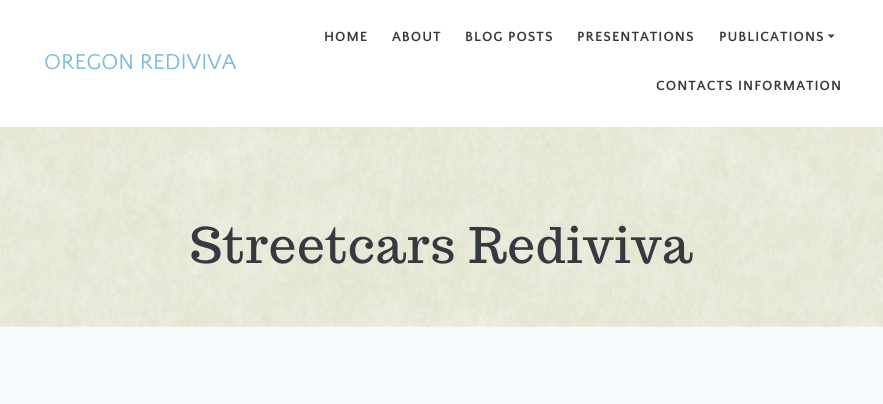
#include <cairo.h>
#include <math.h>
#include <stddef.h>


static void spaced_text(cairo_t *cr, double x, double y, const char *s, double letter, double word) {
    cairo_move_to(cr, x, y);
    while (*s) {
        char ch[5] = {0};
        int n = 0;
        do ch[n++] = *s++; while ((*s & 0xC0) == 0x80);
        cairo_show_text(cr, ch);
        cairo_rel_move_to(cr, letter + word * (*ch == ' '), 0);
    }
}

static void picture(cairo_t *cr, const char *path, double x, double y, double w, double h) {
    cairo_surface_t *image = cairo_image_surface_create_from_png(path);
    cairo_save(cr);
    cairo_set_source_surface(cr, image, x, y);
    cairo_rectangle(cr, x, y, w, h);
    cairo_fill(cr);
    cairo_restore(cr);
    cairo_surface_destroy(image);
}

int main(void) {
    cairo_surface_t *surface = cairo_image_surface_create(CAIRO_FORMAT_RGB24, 883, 404);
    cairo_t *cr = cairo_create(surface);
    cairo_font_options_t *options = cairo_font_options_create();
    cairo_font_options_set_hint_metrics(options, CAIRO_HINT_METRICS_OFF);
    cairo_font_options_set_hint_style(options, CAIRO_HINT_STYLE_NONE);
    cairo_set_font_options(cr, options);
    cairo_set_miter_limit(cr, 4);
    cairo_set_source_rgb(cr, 1, 1, 1);
    cairo_paint(cr);
    cairo_select_font_face(cr, "Quattrocento Sans", CAIRO_FONT_SLANT_NORMAL, CAIRO_FONT_WEIGHT_NORMAL);
    cairo_set_font_size(cr, 22.5);
    cairo_set_source_rgb(cr, 0.486, 0.745, 0.843);
    cairo_move_to(cr, 44, 69);
    cairo_show_text(cr, "OREGON REDIVIVA");
    cairo_select_font_face(cr, "Quattrocento Sans", CAIRO_FONT_SLANT_NORMAL, CAIRO_FONT_WEIGHT_BOLD);
    cairo_set_font_size(cr, 14);
    cairo_set_source_rgb(cr, 0.204, 0.227, 0.251);
    spaced_text(cr, 324, 41, "HOME", 1, 0);
    spaced_text(cr, 392, 41, "ABOUT", 1, 0);
    spaced_text(cr, 465, 41, "BLOG POSTS", 1, 0);
    spaced_text(cr, 577, 41, "PRESENTATIONS", 1, 0);
    spaced_text(cr, 719, 41, "PUBLICATIONS", 1, 0);
    picture(cr, "img1.png", 828, 34, 7, 4);
    spaced_text(cr, 656, 90, "CONTACTS INFORMATION", 1, 0);
    picture(cr, "img2.png", 0, 127, 883, 200);
    cairo_select_font_face(cr, "Trocchi", CAIRO_FONT_SLANT_NORMAL, CAIRO_FONT_WEIGHT_NORMAL);
    cairo_set_font_size(cr, 49);
    spaced_text(cr, 190, 263, "Streetcars Rediviva", 0.9, 0);
    cairo_set_source_rgb(cr, 0.961, 0.98, 0.992);
    cairo_rectangle(cr, 0, 327, 883, 77);
    cairo_fill(cr);
    cairo_surface_write_to_png(surface, "page.png");
    cairo_font_options_destroy(options);
    cairo_destroy(cr);
    cairo_surface_destroy(surface);
    return 0;
}
